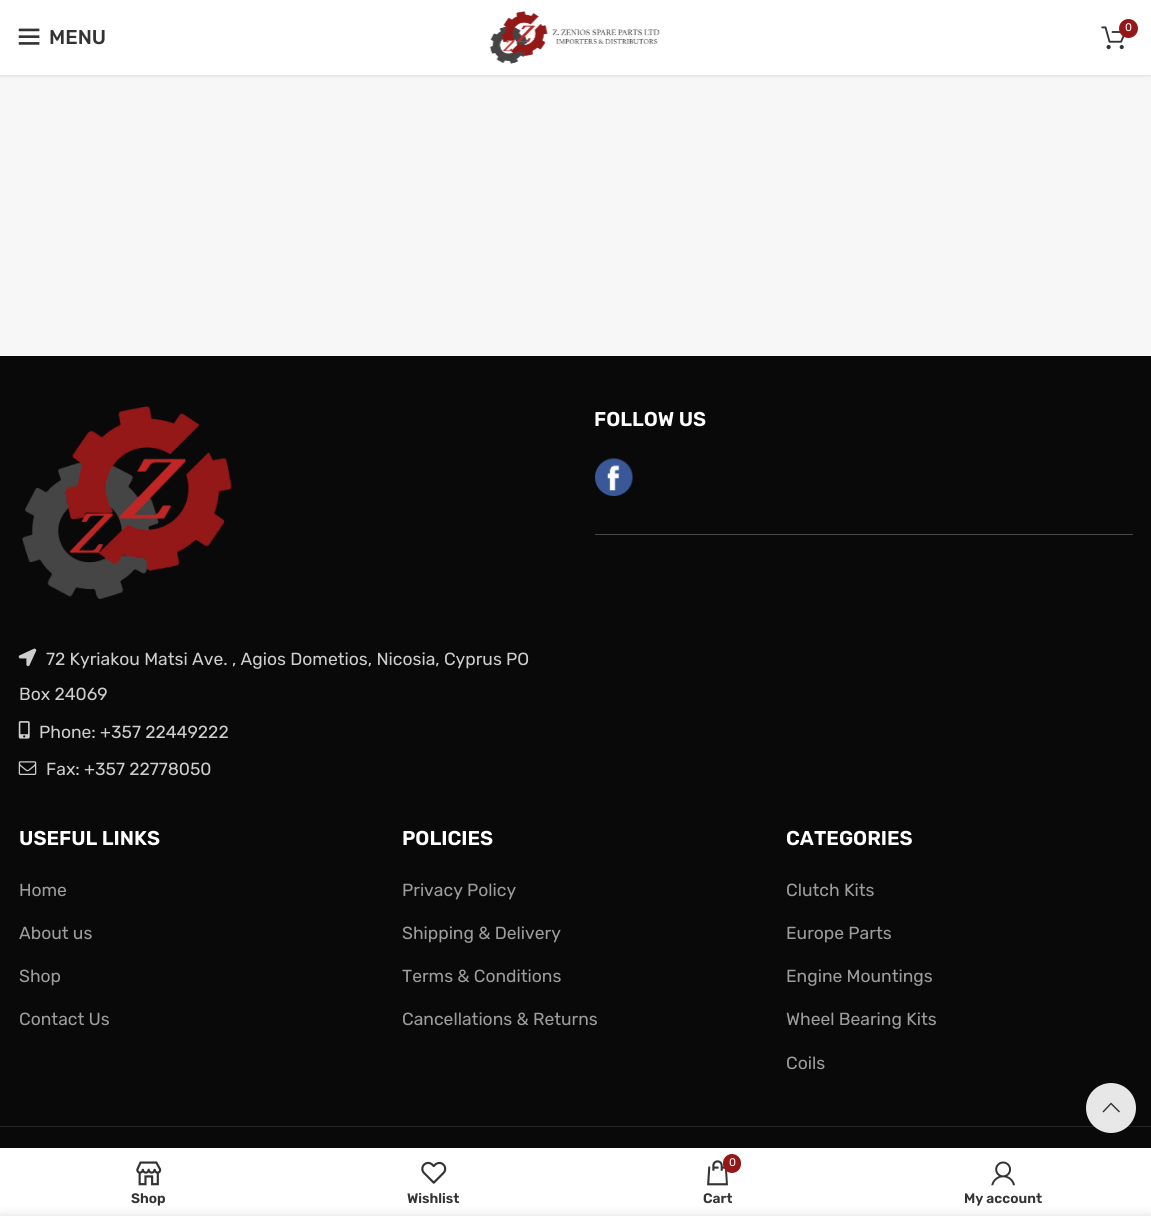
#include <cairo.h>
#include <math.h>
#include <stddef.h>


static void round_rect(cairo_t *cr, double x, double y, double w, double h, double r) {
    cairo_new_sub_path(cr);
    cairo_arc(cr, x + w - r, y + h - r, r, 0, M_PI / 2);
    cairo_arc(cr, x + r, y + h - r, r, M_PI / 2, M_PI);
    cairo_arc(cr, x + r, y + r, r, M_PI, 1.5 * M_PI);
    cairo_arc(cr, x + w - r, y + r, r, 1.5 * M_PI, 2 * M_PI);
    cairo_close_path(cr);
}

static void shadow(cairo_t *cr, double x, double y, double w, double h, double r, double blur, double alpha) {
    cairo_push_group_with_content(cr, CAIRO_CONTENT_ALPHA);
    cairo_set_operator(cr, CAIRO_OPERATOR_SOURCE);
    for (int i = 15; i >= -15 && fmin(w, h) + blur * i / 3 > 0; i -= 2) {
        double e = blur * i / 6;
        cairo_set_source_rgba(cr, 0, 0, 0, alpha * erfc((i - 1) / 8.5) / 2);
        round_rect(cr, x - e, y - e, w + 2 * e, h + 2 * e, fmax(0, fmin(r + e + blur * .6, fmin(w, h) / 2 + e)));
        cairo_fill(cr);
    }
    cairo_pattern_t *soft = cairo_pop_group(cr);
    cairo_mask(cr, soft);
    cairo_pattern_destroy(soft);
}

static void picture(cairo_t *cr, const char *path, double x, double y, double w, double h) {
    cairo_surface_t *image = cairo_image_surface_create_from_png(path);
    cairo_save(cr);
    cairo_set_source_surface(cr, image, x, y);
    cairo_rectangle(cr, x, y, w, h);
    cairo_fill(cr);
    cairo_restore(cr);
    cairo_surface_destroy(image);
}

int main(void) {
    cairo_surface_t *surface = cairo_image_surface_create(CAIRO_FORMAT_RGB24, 1151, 1216);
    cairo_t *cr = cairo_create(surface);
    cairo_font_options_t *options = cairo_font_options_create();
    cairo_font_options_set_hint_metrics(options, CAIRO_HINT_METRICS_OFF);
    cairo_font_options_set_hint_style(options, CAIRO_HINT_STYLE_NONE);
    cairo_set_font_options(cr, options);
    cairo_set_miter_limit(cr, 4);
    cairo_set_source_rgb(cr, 0.965, 0.965, 0.965);
    cairo_paint(cr);
    cairo_set_source_rgb(cr, 0, 0, 0);
    shadow(cr, 0, 1, 1151, 75, 0, 2, 0.1);
    cairo_set_source_rgb(cr, 1, 1, 1);
    cairo_rectangle(cr, 0, 0, 1151, 75);
    cairo_fill(cr);
    picture(cr, "img1.png", 489, 11, 171, 53);
    picture(cr, "img2.png", 1101, 26, 24, 24);
    cairo_set_source_rgb(cr, 0.58, 0.094, 0.094);
    cairo_arc(cr, 1128.5, 28.5, 9.5, 0, 2 * M_PI);
    cairo_fill(cr);
    cairo_select_font_face(cr, "Rubik", CAIRO_FONT_SLANT_NORMAL, CAIRO_FONT_WEIGHT_NORMAL);
    cairo_set_font_size(cr, 11);
    cairo_set_source_rgb(cr, 1, 1, 1);
    cairo_move_to(cr, 1125, 31);
    cairo_show_text(cr, "0");
    picture(cr, "img3.png", 18, 28, 22, 17);
    cairo_select_font_face(cr, "Rubik Medium", CAIRO_FONT_SLANT_NORMAL, CAIRO_FONT_WEIGHT_NORMAL);
    cairo_set_font_size(cr, 20);
    cairo_set_source_rgb(cr, 0.2, 0.2, 0.2);
    cairo_move_to(cr, 49, 44);
    cairo_show_text(cr, "MENU");
    cairo_set_source_rgb(cr, 0.039, 0.039, 0.039);
    cairo_rectangle(cr, 0, 356, 1151, 792);
    cairo_fill(cr);
    cairo_set_source_rgb(cr, 0.278, 0.278, 0.278);
    cairo_rectangle(cr, 595, 534, 538, 1);
    cairo_fill(cr);
    cairo_select_font_face(cr, "Rubik SemiBold", CAIRO_FONT_SLANT_NORMAL, CAIRO_FONT_WEIGHT_NORMAL);
    cairo_set_source_rgb(cr, 1, 1, 1);
    cairo_move_to(cr, 594, 426);
    cairo_show_text(cr, "FOLLOW US");
    picture(cr, "img4.png", 595, 458, 38, 38);
    picture(cr, "img5.png", 22, 406, 210, 193);
    picture(cr, "img6.png", 18, 648, 19, 19);
    cairo_select_font_face(cr, "Rubik", CAIRO_FONT_SLANT_NORMAL, CAIRO_FONT_WEIGHT_NORMAL);
    cairo_set_font_size(cr, 17.5);
    cairo_set_source_rgb(cr, 0.808, 0.808, 0.808);
    cairo_move_to(cr, 46, 665);
    cairo_show_text(cr, "72 Kyriakou Matsi Ave. , Agios Dometios, Nicosia, Cyprus PO");
    cairo_move_to(cr, 19, 700);
    cairo_show_text(cr, "Box 24069");
    picture(cr, "img7.png", 18, 721, 12, 18);
    cairo_move_to(cr, 39, 738);
    cairo_show_text(cr, "Phone: +357 22449222");
    picture(cr, "img8.png", 18, 761, 19, 14);
    cairo_move_to(cr, 46, 775);
    cairo_show_text(cr, "Fax: +357 22778050");
    cairo_select_font_face(cr, "Rubik SemiBold", CAIRO_FONT_SLANT_NORMAL, CAIRO_FONT_WEIGHT_NORMAL);
    cairo_set_font_size(cr, 20);
    cairo_set_source_rgb(cr, 1, 1, 1);
    cairo_move_to(cr, 19, 845);
    cairo_show_text(cr, "USEFUL LINKS");
    cairo_select_font_face(cr, "Rubik", CAIRO_FONT_SLANT_NORMAL, CAIRO_FONT_WEIGHT_NORMAL);
    cairo_set_font_size(cr, 17.5);
    cairo_set_source_rgb(cr, 0.616, 0.616, 0.616);
    cairo_move_to(cr, 19, 896);
    cairo_show_text(cr, "Home");
    cairo_move_to(cr, 19, 939);
    cairo_show_text(cr, "About us");
    cairo_move_to(cr, 19, 982);
    cairo_show_text(cr, "Shop");
    cairo_move_to(cr, 19, 1025);
    cairo_show_text(cr, "Contact Us");
    cairo_select_font_face(cr, "Rubik SemiBold", CAIRO_FONT_SLANT_NORMAL, CAIRO_FONT_WEIGHT_NORMAL);
    cairo_set_font_size(cr, 20);
    cairo_set_source_rgb(cr, 1, 1, 1);
    cairo_move_to(cr, 402, 845);
    cairo_show_text(cr, "POLICIES");
    cairo_select_font_face(cr, "Rubik", CAIRO_FONT_SLANT_NORMAL, CAIRO_FONT_WEIGHT_NORMAL);
    cairo_set_font_size(cr, 17.5);
    cairo_set_source_rgb(cr, 0.616, 0.616, 0.616);
    cairo_move_to(cr, 402, 896);
    cairo_show_text(cr, "Privacy Policy");
    cairo_move_to(cr, 402, 939);
    cairo_show_text(cr, "Shipping & Delivery");
    cairo_move_to(cr, 402, 982);
    cairo_show_text(cr, "Terms & Conditions");
    cairo_move_to(cr, 402, 1025);
    cairo_show_text(cr, "Cancellations & Returns");
    cairo_select_font_face(cr, "Rubik SemiBold", CAIRO_FONT_SLANT_NORMAL, CAIRO_FONT_WEIGHT_NORMAL);
    cairo_set_font_size(cr, 20);
    cairo_set_source_rgb(cr, 1, 1, 1);
    cairo_move_to(cr, 786, 845);
    cairo_show_text(cr, "CATEGORIES");
    cairo_select_font_face(cr, "Rubik", CAIRO_FONT_SLANT_NORMAL, CAIRO_FONT_WEIGHT_NORMAL);
    cairo_set_font_size(cr, 17.5);
    cairo_set_source_rgb(cr, 0.616, 0.616, 0.616);
    cairo_move_to(cr, 786, 896);
    cairo_show_text(cr, "Clutch Kits");
    cairo_move_to(cr, 786, 939);
    cairo_show_text(cr, "Europe Parts");
    cairo_move_to(cr, 786, 982);
    cairo_show_text(cr, "Engine Mountings");
    cairo_move_to(cr, 786, 1025);
    cairo_show_text(cr, "Wheel Bearing Kits");
    cairo_move_to(cr, 786, 1069);
    cairo_show_text(cr, "Coils");
    cairo_set_source_rgb(cr, 0.137, 0.137, 0.137);
    cairo_rectangle(cr, 0, 1126, 1151, 1);
    cairo_fill(cr);
    cairo_set_source_rgba(cr, 1, 1, 1, 0.9);
    cairo_arc(cr, 1111, 1108, 25, 0, 2 * M_PI);
    cairo_fill(cr);
    cairo_set_source_rgb(cr, 0.2, 0.2, 0.2);
    cairo_new_path(cr);
    cairo_move_to(cr, 1111, 1102.5);
    cairo_line_to(cr, 1120, 1111.5);
    cairo_line_to(cr, 1119, 1112.5);
    cairo_line_to(cr, 1111, 1104.5);
    cairo_line_to(cr, 1103.5, 1112.5);
    cairo_line_to(cr, 1102.5, 1111.5);
    cairo_close_path(cr);
    cairo_fill(cr);
    cairo_set_source_rgb(cr, 1, 1, 1);
    cairo_rectangle(cr, 0, 1148, 1151, 68);
    cairo_fill(cr);
    picture(cr, "img9.png", 136, 1161, 26, 25);
    cairo_select_font_face(cr, "Rubik SemiBold", CAIRO_FONT_SLANT_NORMAL, CAIRO_FONT_WEIGHT_NORMAL);
    cairo_set_font_size(cr, 13.75);
    cairo_set_source_rgb(cr, 0.2, 0.2, 0.2);
    cairo_move_to(cr, 131, 1203);
    cairo_show_text(cr, "Shop");
    picture(cr, "img10.png", 421, 1161, 26, 23);
    cairo_move_to(cr, 407, 1203);
    cairo_show_text(cr, "Wishlist");
    picture(cr, "img11.png", 707, 1160, 21, 26);
    cairo_set_source_rgb(cr, 0.58, 0.094, 0.094);
    round_rect(cr, 723, 1154, 18, 19, 9);
    cairo_fill(cr);
    cairo_select_font_face(cr, "Rubik", CAIRO_FONT_SLANT_NORMAL, CAIRO_FONT_WEIGHT_NORMAL);
    cairo_set_font_size(cr, 11);
    cairo_set_source_rgb(cr, 1, 1, 1);
    cairo_move_to(cr, 729, 1166);
    cairo_show_text(cr, "0");
    cairo_select_font_face(cr, "Rubik SemiBold", CAIRO_FONT_SLANT_NORMAL, CAIRO_FONT_WEIGHT_NORMAL);
    cairo_set_font_size(cr, 13.75);
    cairo_set_source_rgb(cr, 0.2, 0.2, 0.2);
    cairo_move_to(cr, 703, 1203);
    cairo_show_text(cr, "Cart");
    picture(cr, "img12.png", 991, 1161, 24, 25);
    cairo_move_to(cr, 964, 1203);
    cairo_show_text(cr, "My account");
    cairo_set_source_rgb(cr, 0, 0, 0);
    shadow(cr, 0, 1216, 1151, 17, 0, 5.5, 0.14);
    cairo_surface_write_to_png(surface, "page.png");
    cairo_font_options_destroy(options);
    cairo_destroy(cr);
    cairo_surface_destroy(surface);
    return 0;
}
